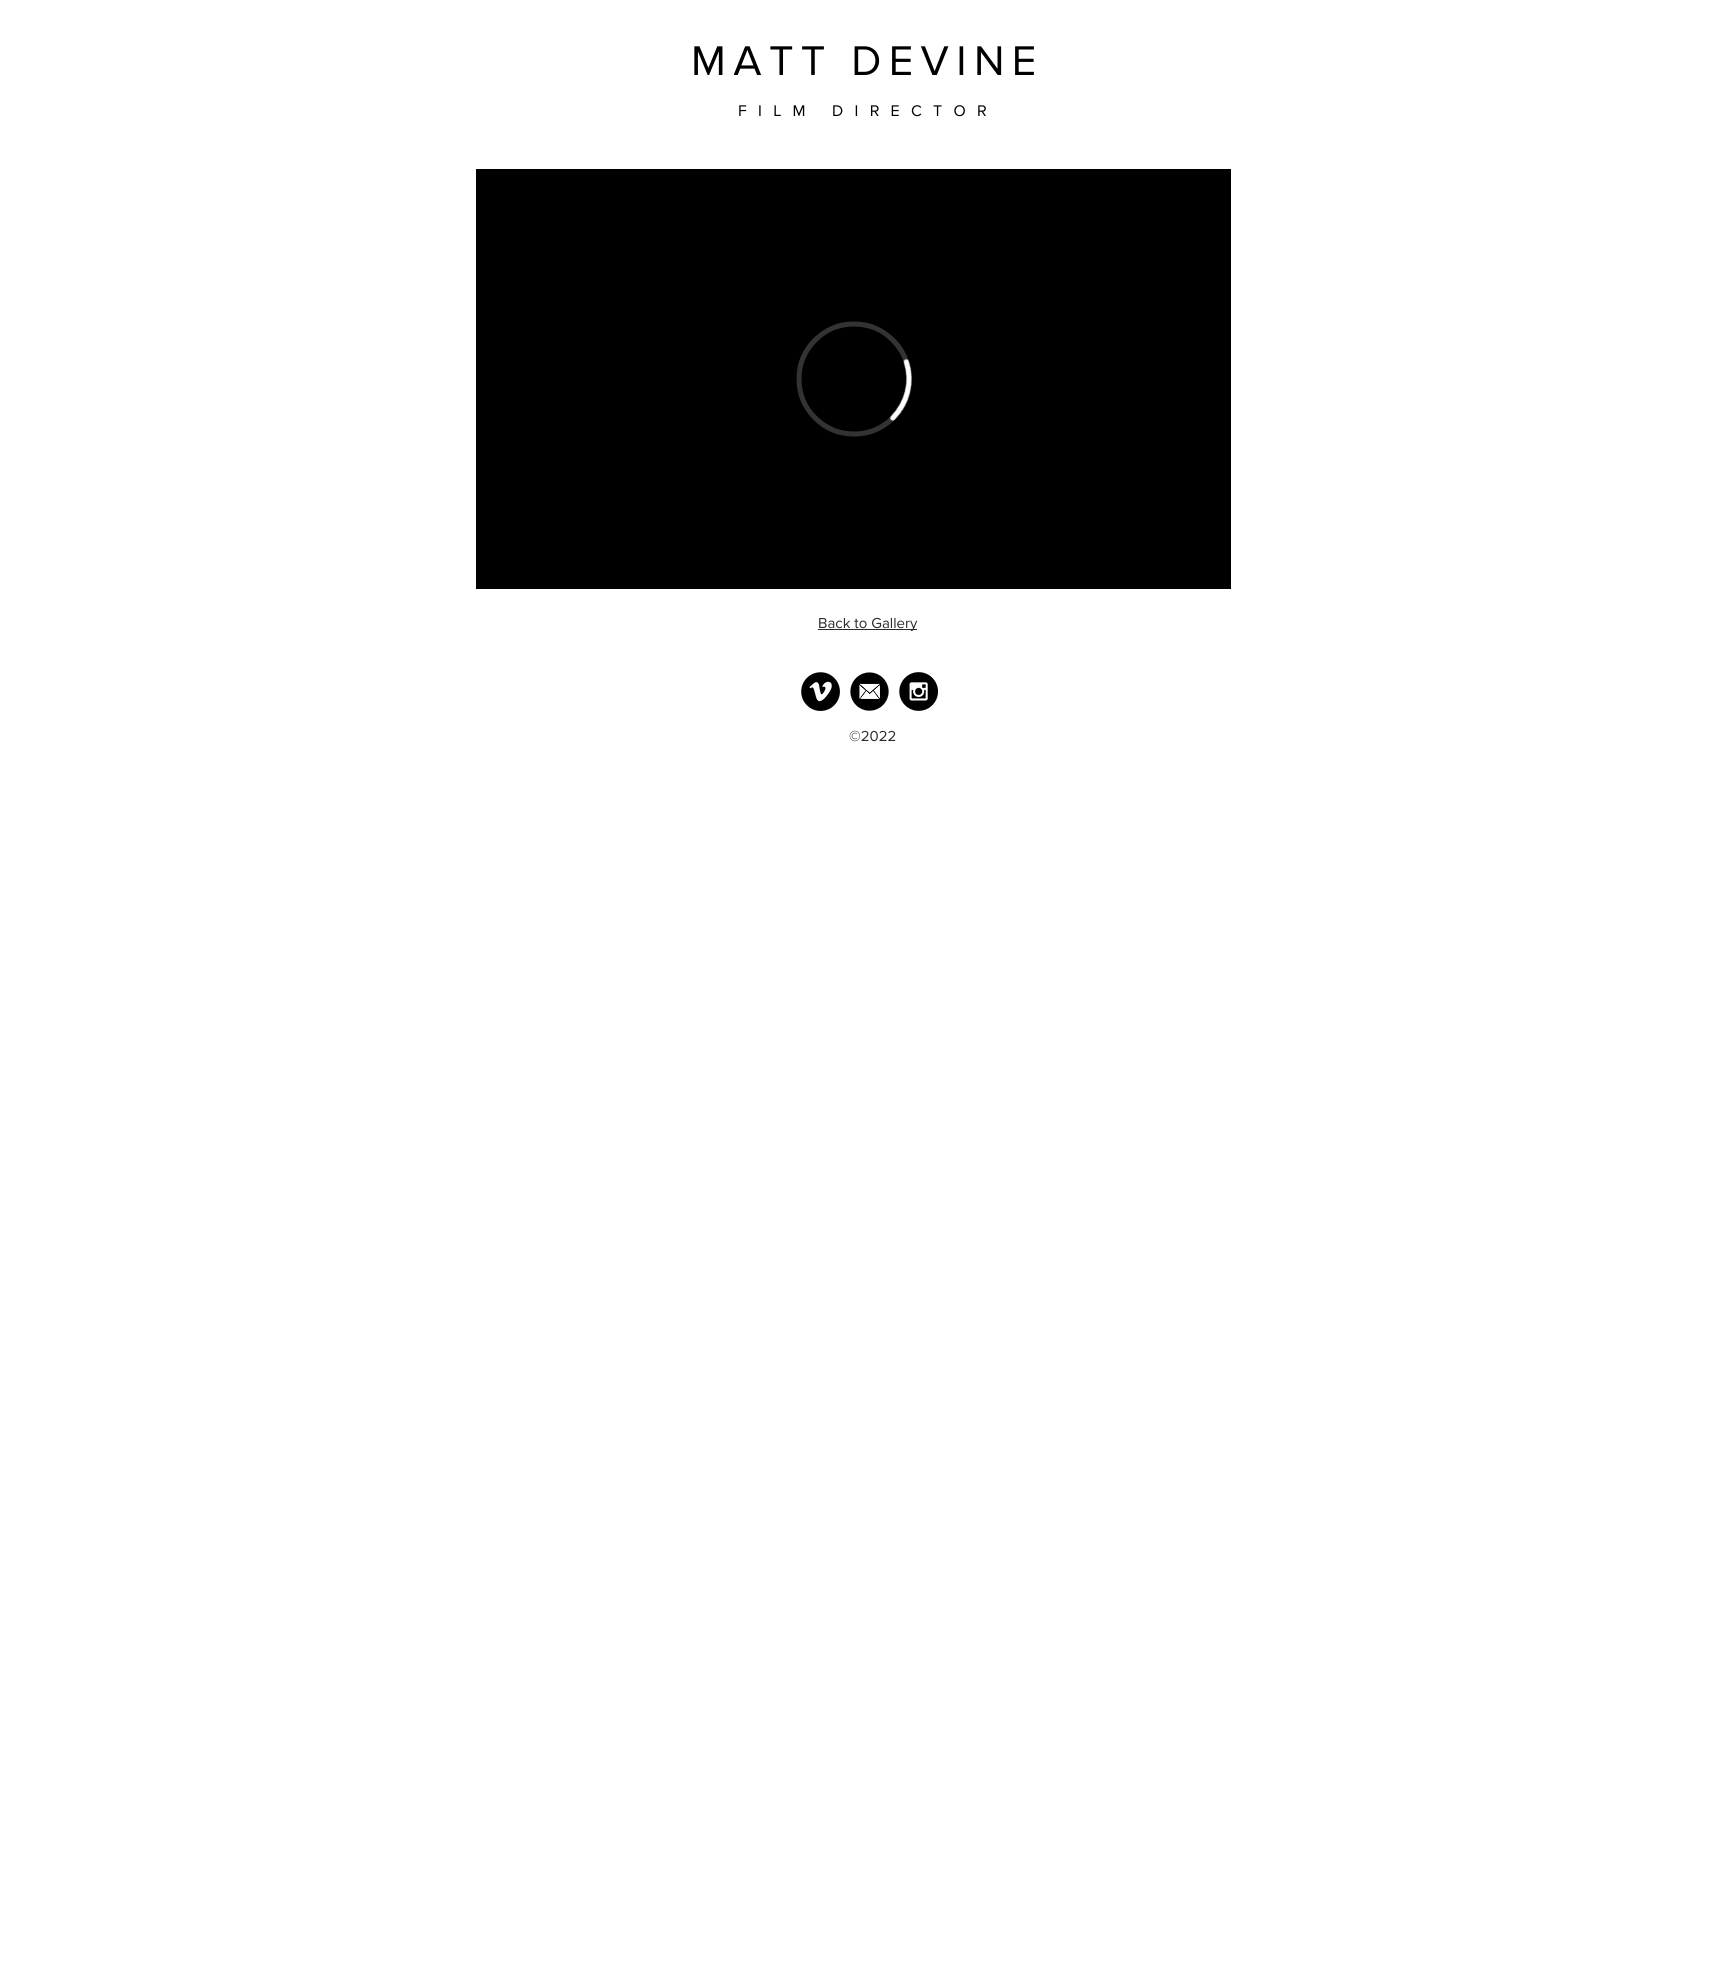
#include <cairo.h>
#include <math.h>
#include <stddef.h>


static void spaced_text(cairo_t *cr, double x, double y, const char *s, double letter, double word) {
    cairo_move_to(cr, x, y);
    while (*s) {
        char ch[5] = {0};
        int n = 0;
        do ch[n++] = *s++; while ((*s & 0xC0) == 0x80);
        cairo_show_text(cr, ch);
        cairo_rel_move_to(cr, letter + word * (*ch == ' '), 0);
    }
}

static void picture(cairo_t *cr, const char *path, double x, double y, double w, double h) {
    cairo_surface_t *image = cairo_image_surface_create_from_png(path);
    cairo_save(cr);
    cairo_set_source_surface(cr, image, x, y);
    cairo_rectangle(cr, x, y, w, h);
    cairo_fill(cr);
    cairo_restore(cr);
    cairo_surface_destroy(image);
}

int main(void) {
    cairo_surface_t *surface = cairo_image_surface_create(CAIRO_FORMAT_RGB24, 1735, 1970);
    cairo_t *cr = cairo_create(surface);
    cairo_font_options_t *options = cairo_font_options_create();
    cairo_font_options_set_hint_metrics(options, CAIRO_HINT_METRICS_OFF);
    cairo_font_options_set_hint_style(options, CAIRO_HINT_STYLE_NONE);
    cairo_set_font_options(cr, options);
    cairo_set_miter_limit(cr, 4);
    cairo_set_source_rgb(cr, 1, 1, 1);
    cairo_paint(cr);
    cairo_select_font_face(cr, "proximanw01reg", CAIRO_FONT_SLANT_NORMAL, CAIRO_FONT_WEIGHT_NORMAL);
    cairo_set_font_size(cr, 43);
    cairo_set_source_rgb(cr, 0, 0, 0);
    spaced_text(cr, 691, 75, "MATT DEVINE", 7.4, 0);
    cairo_set_font_size(cr, 16);
    spaced_text(cr, 738, 116, "FILM DIRECTOR", 11.25, 0);
    picture(cr, "img1.png", 476, 169, 755, 420);
    cairo_set_source_rgb(cr, 0.169, 0.169, 0.169);
    cairo_rectangle(cr, 818, 629, 99, 1);
    cairo_fill(cr);
    cairo_set_font_size(cr, 15);
    cairo_move_to(cr, 818, 628);
    cairo_show_text(cr, "Back to Gallery");
    picture(cr, "img2.png", 801, 672, 39, 39);
    picture(cr, "img3.png", 850, 672, 39, 39);
    picture(cr, "img4.png", 899, 672, 39, 39);
    cairo_move_to(cr, 849, 741);
    cairo_show_text(cr, "©2022");
    cairo_surface_write_to_png(surface, "page.png");
    cairo_font_options_destroy(options);
    cairo_destroy(cr);
    cairo_surface_destroy(surface);
    return 0;
}
